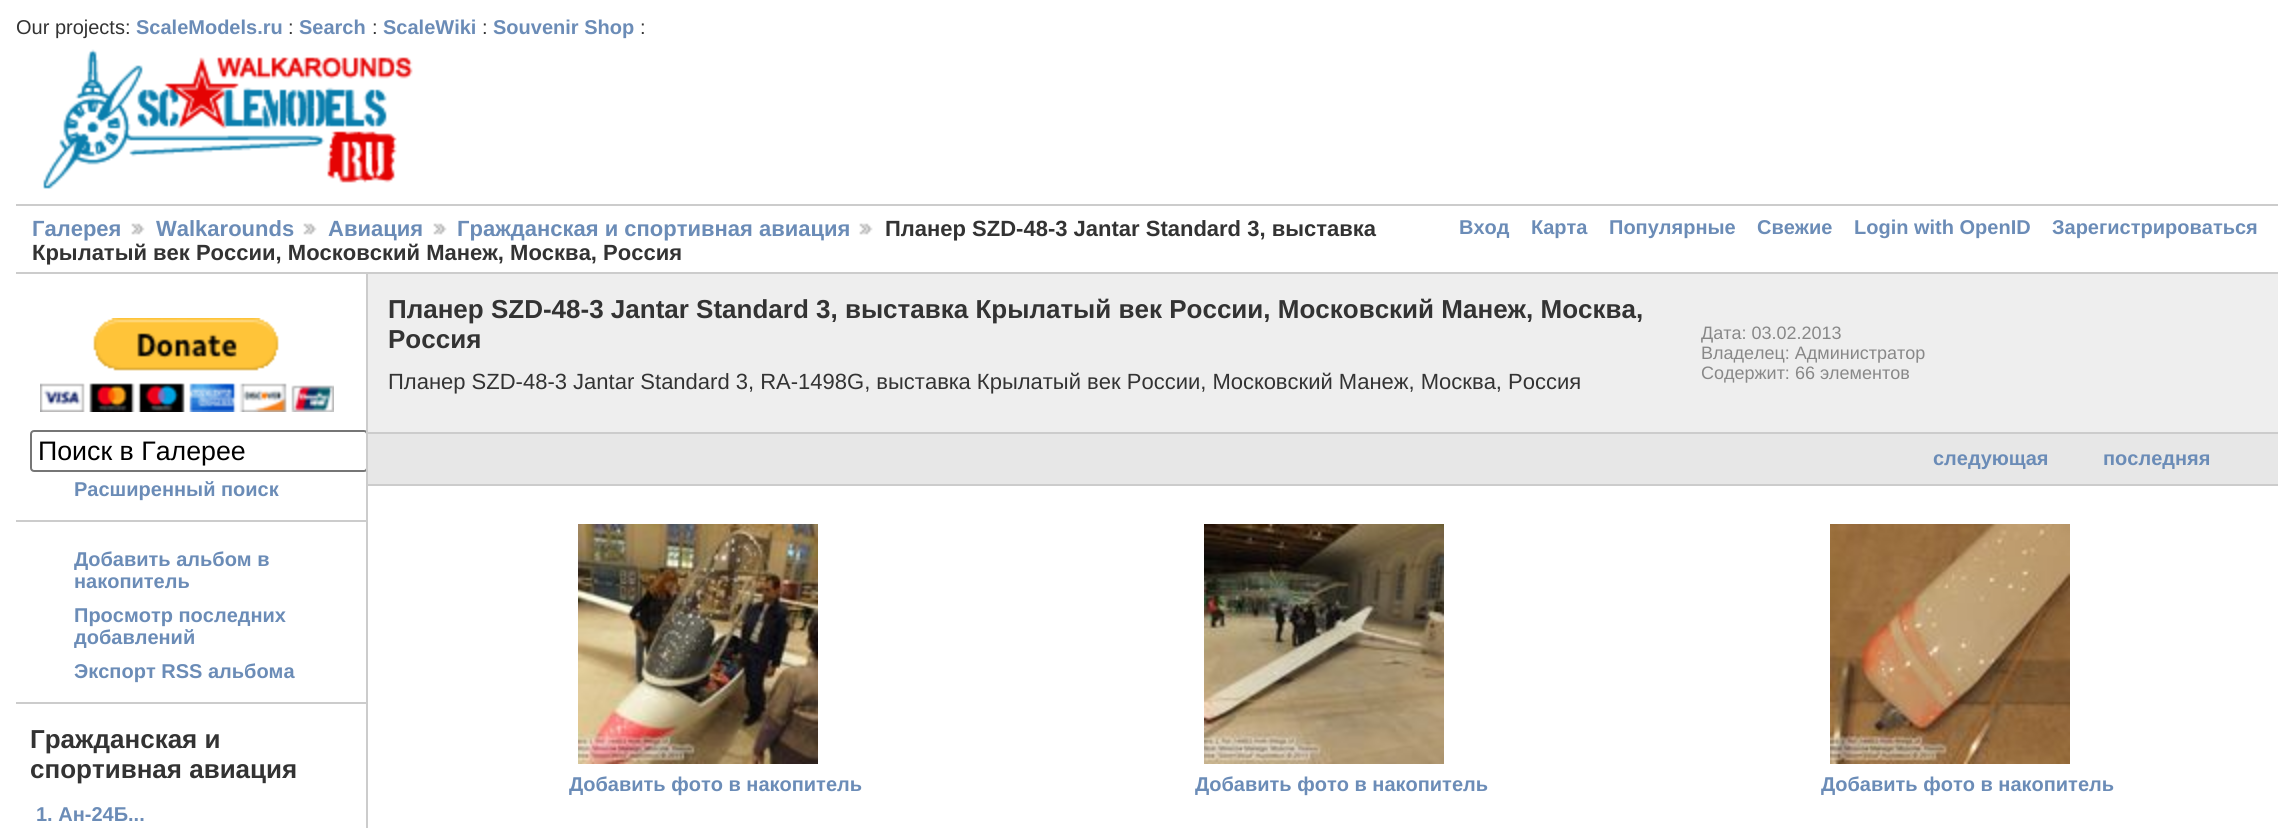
#include <cairo.h>
#include <math.h>
#include <stddef.h>


static void round_rect(cairo_t *cr, double x, double y, double w, double h, double r) {
    cairo_new_sub_path(cr);
    cairo_arc(cr, x + w - r, y + h - r, r, 0, M_PI / 2);
    cairo_arc(cr, x + r, y + h - r, r, M_PI / 2, M_PI);
    cairo_arc(cr, x + r, y + r, r, M_PI, 1.5 * M_PI);
    cairo_arc(cr, x + w - r, y + r, r, 1.5 * M_PI, 2 * M_PI);
    cairo_close_path(cr);
}

static void picture(cairo_t *cr, const char *path, double x, double y, double w, double h) {
    cairo_surface_t *image = cairo_image_surface_create_from_png(path);
    cairo_save(cr);
    cairo_set_source_surface(cr, image, x, y);
    cairo_rectangle(cr, x, y, w, h);
    cairo_fill(cr);
    cairo_restore(cr);
    cairo_surface_destroy(image);
}

int main(void) {
    cairo_surface_t *surface = cairo_image_surface_create(CAIRO_FORMAT_RGB24, 2294, 828);
    cairo_t *cr = cairo_create(surface);
    cairo_font_options_t *options = cairo_font_options_create();
    cairo_font_options_set_hint_metrics(options, CAIRO_HINT_METRICS_OFF);
    cairo_font_options_set_hint_style(options, CAIRO_HINT_STYLE_NONE);
    cairo_set_font_options(cr, options);
    cairo_set_miter_limit(cr, 4);
    cairo_set_source_rgb(cr, 1, 1, 1);
    cairo_paint(cr);
    cairo_select_font_face(cr, "Liberation Sans", CAIRO_FONT_SLANT_NORMAL, CAIRO_FONT_WEIGHT_NORMAL);
    cairo_set_font_size(cr, 20);
    cairo_set_source_rgb(cr, 0.2, 0.2, 0.2);
    cairo_move_to(cr, 16, 34);
    cairo_show_text(cr, "Our projects:");
    cairo_select_font_face(cr, "Liberation Sans", CAIRO_FONT_SLANT_NORMAL, CAIRO_FONT_WEIGHT_BOLD);
    cairo_set_source_rgb(cr, 0.42, 0.549, 0.718);
    cairo_move_to(cr, 136, 34);
    cairo_show_text(cr, "ScaleModels.ru");
    cairo_select_font_face(cr, "Liberation Sans", CAIRO_FONT_SLANT_NORMAL, CAIRO_FONT_WEIGHT_NORMAL);
    cairo_set_source_rgb(cr, 0.2, 0.2, 0.2);
    cairo_move_to(cr, 288, 34);
    cairo_show_text(cr, ":");
    cairo_select_font_face(cr, "Liberation Sans", CAIRO_FONT_SLANT_NORMAL, CAIRO_FONT_WEIGHT_BOLD);
    cairo_set_source_rgb(cr, 0.42, 0.549, 0.718);
    cairo_move_to(cr, 299, 34);
    cairo_show_text(cr, "Search");
    cairo_select_font_face(cr, "Liberation Sans", CAIRO_FONT_SLANT_NORMAL, CAIRO_FONT_WEIGHT_NORMAL);
    cairo_set_source_rgb(cr, 0.2, 0.2, 0.2);
    cairo_move_to(cr, 372, 34);
    cairo_show_text(cr, ":");
    cairo_select_font_face(cr, "Liberation Sans", CAIRO_FONT_SLANT_NORMAL, CAIRO_FONT_WEIGHT_BOLD);
    cairo_set_source_rgb(cr, 0.42, 0.549, 0.718);
    cairo_move_to(cr, 383, 34);
    cairo_show_text(cr, "ScaleWiki");
    cairo_select_font_face(cr, "Liberation Sans", CAIRO_FONT_SLANT_NORMAL, CAIRO_FONT_WEIGHT_NORMAL);
    cairo_set_source_rgb(cr, 0.2, 0.2, 0.2);
    cairo_move_to(cr, 482, 34);
    cairo_show_text(cr, ":");
    cairo_select_font_face(cr, "Liberation Sans", CAIRO_FONT_SLANT_NORMAL, CAIRO_FONT_WEIGHT_BOLD);
    cairo_set_source_rgb(cr, 0.42, 0.549, 0.718);
    cairo_move_to(cr, 493, 34);
    cairo_show_text(cr, "Souvenir Shop");
    cairo_select_font_face(cr, "Liberation Sans", CAIRO_FONT_SLANT_NORMAL, CAIRO_FONT_WEIGHT_NORMAL);
    cairo_set_source_rgb(cr, 0.2, 0.2, 0.2);
    cairo_move_to(cr, 640, 34);
    cairo_show_text(cr, ":");
    picture(cr, "img1.png", 43, 49, 370, 140);
    cairo_set_source_rgb(cr, 0.8, 0.8, 0.8);
    cairo_rectangle(cr, 16, 204, 2262, 2);
    cairo_fill(cr);
    cairo_rectangle(cr, 16, 272, 2262, 2);
    cairo_fill(cr);
    cairo_select_font_face(cr, "Liberation Sans", CAIRO_FONT_SLANT_NORMAL, CAIRO_FONT_WEIGHT_BOLD);
    cairo_set_font_size(cr, 22);
    cairo_set_source_rgb(cr, 0.42, 0.549, 0.718);
    cairo_move_to(cr, 32, 236);
    cairo_show_text(cr, "Галерея");
    picture(cr, "img2.png", 131, 223, 14, 12);
    cairo_move_to(cr, 156, 236);
    cairo_show_text(cr, "Walkarounds");
    picture(cr, "img2.png", 303, 223, 14, 12);
    cairo_move_to(cr, 328, 236);
    cairo_show_text(cr, "Авиация");
    picture(cr, "img2.png", 433, 223, 14, 12);
    cairo_move_to(cr, 457, 236);
    cairo_show_text(cr, "Гражданская и спортивная авиация");
    picture(cr, "img2.png", 859, 223, 14, 12);
    cairo_set_source_rgb(cr, 0.2, 0.2, 0.2);
    cairo_move_to(cr, 885, 236);
    cairo_show_text(cr, "Планер SZD-48-3 Jantar Standard 3, выставка");
    cairo_move_to(cr, 32, 260);
    cairo_show_text(cr, "Крылатый век России, Московский Манеж, Москва, Россия");
    cairo_set_font_size(cr, 20);
    cairo_set_source_rgb(cr, 0.42, 0.549, 0.718);
    cairo_move_to(cr, 1459, 234);
    cairo_show_text(cr, "Вход");
    cairo_move_to(cr, 1531, 234);
    cairo_show_text(cr, "Карта");
    cairo_move_to(cr, 1609, 234);
    cairo_show_text(cr, "Популярные");
    cairo_move_to(cr, 1757, 234);
    cairo_show_text(cr, "Свежие");
    cairo_move_to(cr, 1854, 234);
    cairo_show_text(cr, "Login with OpenID");
    cairo_move_to(cr, 2052, 234);
    cairo_show_text(cr, "Зарегистрироваться");
    cairo_set_source_rgb(cr, 0.8, 0.8, 0.8);
    cairo_rectangle(cr, 366, 274, 2, 554);
    cairo_fill(cr);
    picture(cr, "img3.png", 40, 318, 294, 94);
    cairo_rectangle(cr, 16, 520, 350, 2);
    cairo_fill(cr);
    cairo_save(cr);
    cairo_rectangle(cr, 16, 274, 350, 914);
    cairo_clip(cr);
    round_rect(cr, 31, 431, 336, 40, 3);
    cairo_set_source_rgb(cr, 0.463, 0.463, 0.463);
    cairo_stroke(cr);
    cairo_restore(cr);
    cairo_select_font_face(cr, "Liberation Sans", CAIRO_FONT_SLANT_NORMAL, CAIRO_FONT_WEIGHT_NORMAL);
    cairo_set_font_size(cr, 26.75);
    cairo_set_source_rgb(cr, 0, 0, 0);
    cairo_move_to(cr, 38, 460);
    cairo_show_text(cr, "Поиск в Галерее");
    cairo_select_font_face(cr, "Liberation Sans", CAIRO_FONT_SLANT_NORMAL, CAIRO_FONT_WEIGHT_BOLD);
    cairo_set_font_size(cr, 20);
    cairo_set_source_rgb(cr, 0.42, 0.549, 0.718);
    cairo_move_to(cr, 74, 496);
    cairo_show_text(cr, "Расширенный поиск");
    cairo_set_source_rgb(cr, 0.8, 0.8, 0.8);
    cairo_rectangle(cr, 16, 702, 350, 2);
    cairo_fill(cr);
    cairo_set_source_rgb(cr, 0.42, 0.549, 0.718);
    cairo_move_to(cr, 74, 566);
    cairo_show_text(cr, "Добавить альбом в");
    cairo_move_to(cr, 74, 588);
    cairo_show_text(cr, "накопитель");
    cairo_move_to(cr, 74, 622);
    cairo_show_text(cr, "Просмотр последних");
    cairo_move_to(cr, 74, 644);
    cairo_show_text(cr, "добавлений");
    cairo_move_to(cr, 74, 678);
    cairo_show_text(cr, "Экспорт RSS альбома");
    cairo_set_font_size(cr, 26);
    cairo_set_source_rgb(cr, 0.2, 0.2, 0.2);
    cairo_move_to(cr, 30, 748);
    cairo_show_text(cr, "Гражданская и");
    cairo_move_to(cr, 30, 778);
    cairo_show_text(cr, "спортивная авиация");
    cairo_set_font_size(cr, 20);
    cairo_set_source_rgb(cr, 0.42, 0.549, 0.718);
    cairo_move_to(cr, 36, 821);
    cairo_show_text(cr, "1. Ан-24Б...");
    cairo_set_source_rgb(cr, 0.933, 0.933, 0.933);
    cairo_rectangle(cr, 368, 274, 1910, 158);
    cairo_fill(cr);
    cairo_set_source_rgb(cr, 0.8, 0.8, 0.8);
    cairo_rectangle(cr, 368, 432, 1910, 2);
    cairo_fill(cr);
    cairo_set_font_size(cr, 26);
    cairo_set_source_rgb(cr, 0.2, 0.2, 0.2);
    cairo_move_to(cr, 388, 318);
    cairo_show_text(cr, "Планер SZD-48-3 Jantar Standard 3, выставка Крылатый век России, Московский Манеж, Москва,");
    cairo_move_to(cr, 388, 348);
    cairo_show_text(cr, "Россия");
    cairo_select_font_face(cr, "Liberation Sans", CAIRO_FONT_SLANT_NORMAL, CAIRO_FONT_WEIGHT_NORMAL);
    cairo_set_font_size(cr, 22);
    cairo_move_to(cr, 388, 389);
    cairo_show_text(cr, "Планер SZD-48-3 Jantar Standard 3, RA-1498G, выставка Крылатый век России, Московский Манеж, Москва, Россия");
    cairo_set_font_size(cr, 18);
    cairo_set_source_rgb(cr, 0.533, 0.533, 0.533);
    cairo_move_to(cr, 1701, 339);
    cairo_show_text(cr, "Дата: 03.02.2013");
    cairo_move_to(cr, 1701, 359);
    cairo_show_text(cr, "Владелец: Администратор");
    cairo_move_to(cr, 1701, 379);
    cairo_show_text(cr, "Содержит: 66 элементов");
    cairo_set_source_rgb(cr, 0.906, 0.906, 0.906);
    cairo_rectangle(cr, 368, 434, 1910, 50);
    cairo_fill(cr);
    cairo_set_source_rgb(cr, 0.8, 0.8, 0.8);
    cairo_rectangle(cr, 368, 484, 1910, 2);
    cairo_fill(cr);
    cairo_select_font_face(cr, "Liberation Sans", CAIRO_FONT_SLANT_NORMAL, CAIRO_FONT_WEIGHT_BOLD);
    cairo_set_font_size(cr, 20);
    cairo_set_source_rgb(cr, 0.42, 0.549, 0.718);
    cairo_move_to(cr, 1933, 465);
    cairo_show_text(cr, "следующая");
    cairo_move_to(cr, 2103, 465);
    cairo_show_text(cr, "последняя");
    picture(cr, "img4.png", 578, 524, 240, 240);
    cairo_move_to(cr, 569, 791);
    cairo_show_text(cr, "Добавить фото в накопитель");
    picture(cr, "img5.png", 1204, 524, 240, 240);
    cairo_move_to(cr, 1195, 791);
    cairo_show_text(cr, "Добавить фото в накопитель");
    picture(cr, "img6.png", 1830, 524, 240, 240);
    cairo_move_to(cr, 1821, 791);
    cairo_show_text(cr, "Добавить фото в накопитель");
    cairo_surface_write_to_png(surface, "page.png");
    cairo_font_options_destroy(options);
    cairo_destroy(cr);
    cairo_surface_destroy(surface);
    return 0;
}
